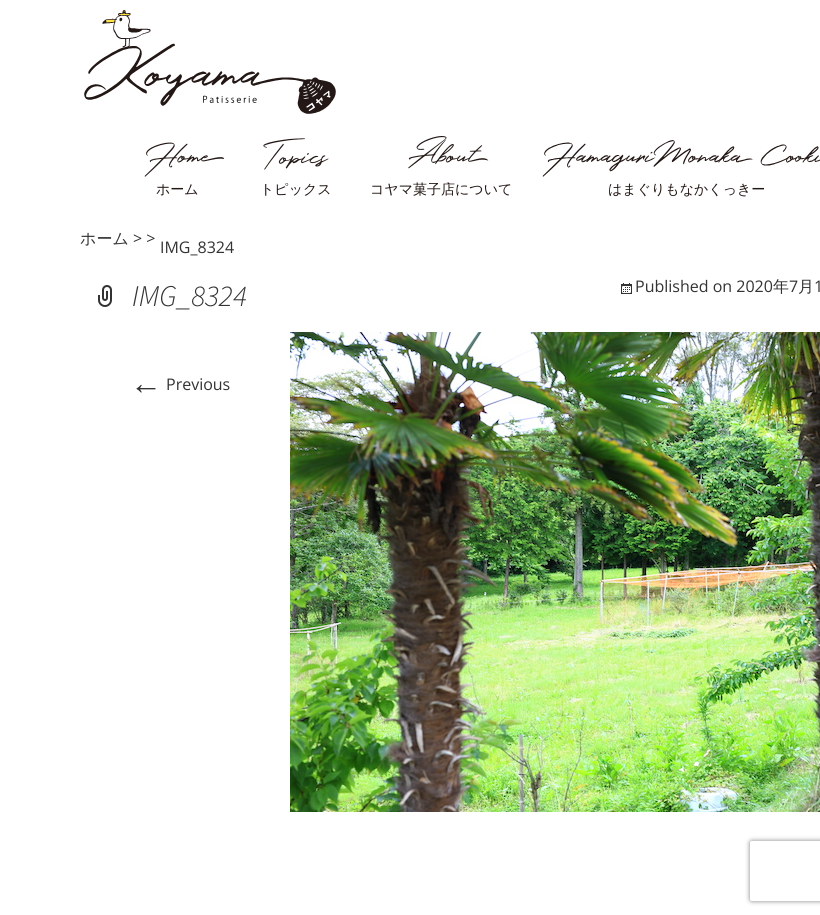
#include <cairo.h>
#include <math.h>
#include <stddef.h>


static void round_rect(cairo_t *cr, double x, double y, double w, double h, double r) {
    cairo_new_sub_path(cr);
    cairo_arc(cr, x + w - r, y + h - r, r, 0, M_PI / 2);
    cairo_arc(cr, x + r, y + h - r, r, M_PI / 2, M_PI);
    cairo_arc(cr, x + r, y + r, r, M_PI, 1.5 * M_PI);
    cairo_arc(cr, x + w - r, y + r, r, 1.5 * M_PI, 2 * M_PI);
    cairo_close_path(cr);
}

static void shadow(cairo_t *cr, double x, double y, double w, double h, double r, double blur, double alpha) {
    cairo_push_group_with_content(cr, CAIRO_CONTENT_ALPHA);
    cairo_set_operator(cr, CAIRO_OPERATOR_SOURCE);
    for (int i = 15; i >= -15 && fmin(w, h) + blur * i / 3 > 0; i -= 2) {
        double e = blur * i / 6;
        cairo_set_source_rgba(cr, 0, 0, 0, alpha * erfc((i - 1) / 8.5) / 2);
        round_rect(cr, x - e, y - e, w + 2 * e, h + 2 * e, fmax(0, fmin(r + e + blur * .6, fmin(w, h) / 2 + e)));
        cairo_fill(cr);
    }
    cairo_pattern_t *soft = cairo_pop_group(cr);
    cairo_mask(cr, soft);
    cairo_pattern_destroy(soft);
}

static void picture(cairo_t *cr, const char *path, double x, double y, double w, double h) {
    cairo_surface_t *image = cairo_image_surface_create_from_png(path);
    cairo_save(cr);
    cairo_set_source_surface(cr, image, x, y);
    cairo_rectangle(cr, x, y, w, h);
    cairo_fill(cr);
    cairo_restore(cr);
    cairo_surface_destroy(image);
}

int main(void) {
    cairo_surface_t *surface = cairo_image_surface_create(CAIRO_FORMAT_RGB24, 820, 915);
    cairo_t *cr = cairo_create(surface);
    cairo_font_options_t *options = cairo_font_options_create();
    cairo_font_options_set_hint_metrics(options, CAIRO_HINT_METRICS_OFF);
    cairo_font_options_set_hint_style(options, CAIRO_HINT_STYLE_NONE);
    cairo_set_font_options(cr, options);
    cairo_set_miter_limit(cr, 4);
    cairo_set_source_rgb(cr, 1, 1, 1);
    cairo_paint(cr);
    picture(cr, "img1.png", 84, 10, 252, 104);
    picture(cr, "img2.png", 144, 142, 80, 35);
    cairo_select_font_face(cr, "WenQuanYi Zen Hei Medium", CAIRO_FONT_SLANT_NORMAL, CAIRO_FONT_WEIGHT_NORMAL);
    cairo_set_font_size(cr, 14);
    cairo_set_source_rgb(cr, 0.137, 0.094, 0.082);
    cairo_move_to(cr, 156, 194);
    cairo_show_text(cr, "ホーム");
    picture(cr, "img3.png", 263, 138, 66, 32);
    cairo_move_to(cr, 260, 194);
    cairo_show_text(cr, "トピックス");
    picture(cr, "img4.png", 408, 136, 81, 33);
    cairo_move_to(cr, 370, 194);
    cairo_show_text(cr, "コヤマ菓子店について");
    picture(cr, "img5.png", 542, 140, 278, 37);
    cairo_move_to(cr, 608, 194);
    cairo_show_text(cr, "はまぐりもなかくっきー");
    cairo_set_font_size(cr, 16);
    cairo_set_source_rgb(cr, 0.2, 0.2, 0.2);
    cairo_move_to(cr, 80, 244);
    cairo_show_text(cr, "ホーム");
    cairo_select_font_face(cr, "Open Sans", CAIRO_FONT_SLANT_NORMAL, CAIRO_FONT_WEIGHT_NORMAL);
    cairo_move_to(cr, 133, 244);
    cairo_show_text(cr, "> >");
    cairo_move_to(cr, 160, 253);
    cairo_show_text(cr, "IMG_8324");
    picture(cr, "img6.png", 98, 285, 14, 22);
    cairo_select_font_face(cr, "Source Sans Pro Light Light", CAIRO_FONT_SLANT_ITALIC, CAIRO_FONT_WEIGHT_NORMAL);
    cairo_set_font_size(cr, 30);
    cairo_move_to(cr, 132, 306);
    cairo_show_text(cr, "IMG_8324");
    picture(cr, "img7.png", 621, 283, 11, 11);
    cairo_select_font_face(cr, "Open Sans", CAIRO_FONT_SLANT_NORMAL, CAIRO_FONT_WEIGHT_NORMAL);
    cairo_set_font_size(cr, 16);
    cairo_move_to(cr, 635, 292);
    cairo_show_text(cr, "Published on 2020");
    cairo_select_font_face(cr, "WenQuanYi Zen Hei Medium", CAIRO_FONT_SLANT_NORMAL, CAIRO_FONT_WEIGHT_NORMAL);
    cairo_move_to(cr, 773, 292);
    cairo_show_text(cr, "年");
    cairo_select_font_face(cr, "Open Sans", CAIRO_FONT_SLANT_NORMAL, CAIRO_FONT_WEIGHT_NORMAL);
    cairo_move_to(cr, 789, 292);
    cairo_show_text(cr, "7");
    cairo_select_font_face(cr, "WenQuanYi Zen Hei Medium", CAIRO_FONT_SLANT_NORMAL, CAIRO_FONT_WEIGHT_NORMAL);
    cairo_move_to(cr, 798, 292);
    cairo_show_text(cr, "月");
    cairo_select_font_face(cr, "Open Sans", CAIRO_FONT_SLANT_NORMAL, CAIRO_FONT_WEIGHT_NORMAL);
    cairo_move_to(cr, 814, 292);
    cairo_show_text(cr, "1");
    cairo_select_font_face(cr, "Liberation Sans", CAIRO_FONT_SLANT_NORMAL, CAIRO_FONT_WEIGHT_NORMAL);
    cairo_set_font_size(cr, 32);
    cairo_move_to(cr, 130, 394);
    cairo_show_text(cr, "←");
    cairo_select_font_face(cr, "Open Sans", CAIRO_FONT_SLANT_NORMAL, CAIRO_FONT_WEIGHT_NORMAL);
    cairo_set_font_size(cr, 16);
    cairo_move_to(cr, 166, 390);
    cairo_show_text(cr, "Previous");
    picture(cr, "img8.png", 290, 332, 530, 480);
    cairo_save(cr);
    cairo_set_fill_rule(cr, CAIRO_FILL_RULE_EVEN_ODD);
    cairo_new_path(cr);
    cairo_move_to(cr, 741, 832);
    cairo_line_to(cr, 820, 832);
    cairo_line_to(cr, 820, 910);
    cairo_line_to(cr, 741, 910);
    cairo_close_path(cr);
    cairo_move_to(cr, 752, 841);
    cairo_line_to(cr, 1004, 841);
    cairo_curve_to(cr, 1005, 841, 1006, 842, 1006, 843);
    cairo_line_to(cr, 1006, 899);
    cairo_curve_to(cr, 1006, 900, 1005, 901, 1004, 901);
    cairo_line_to(cr, 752, 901);
    cairo_curve_to(cr, 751, 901, 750, 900, 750, 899);
    cairo_line_to(cr, 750, 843);
    cairo_curve_to(cr, 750, 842, 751, 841, 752, 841);
    cairo_close_path(cr);
    cairo_clip(cr);
    cairo_set_source_rgb(cr, 0.502, 0.502, 0.502);
    shadow(cr, 750, 841, 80, 60, 2, 2.5, 1);
    cairo_restore(cr);
    cairo_surface_write_to_png(surface, "page.png");
    cairo_font_options_destroy(options);
    cairo_destroy(cr);
    cairo_surface_destroy(surface);
    return 0;
}
